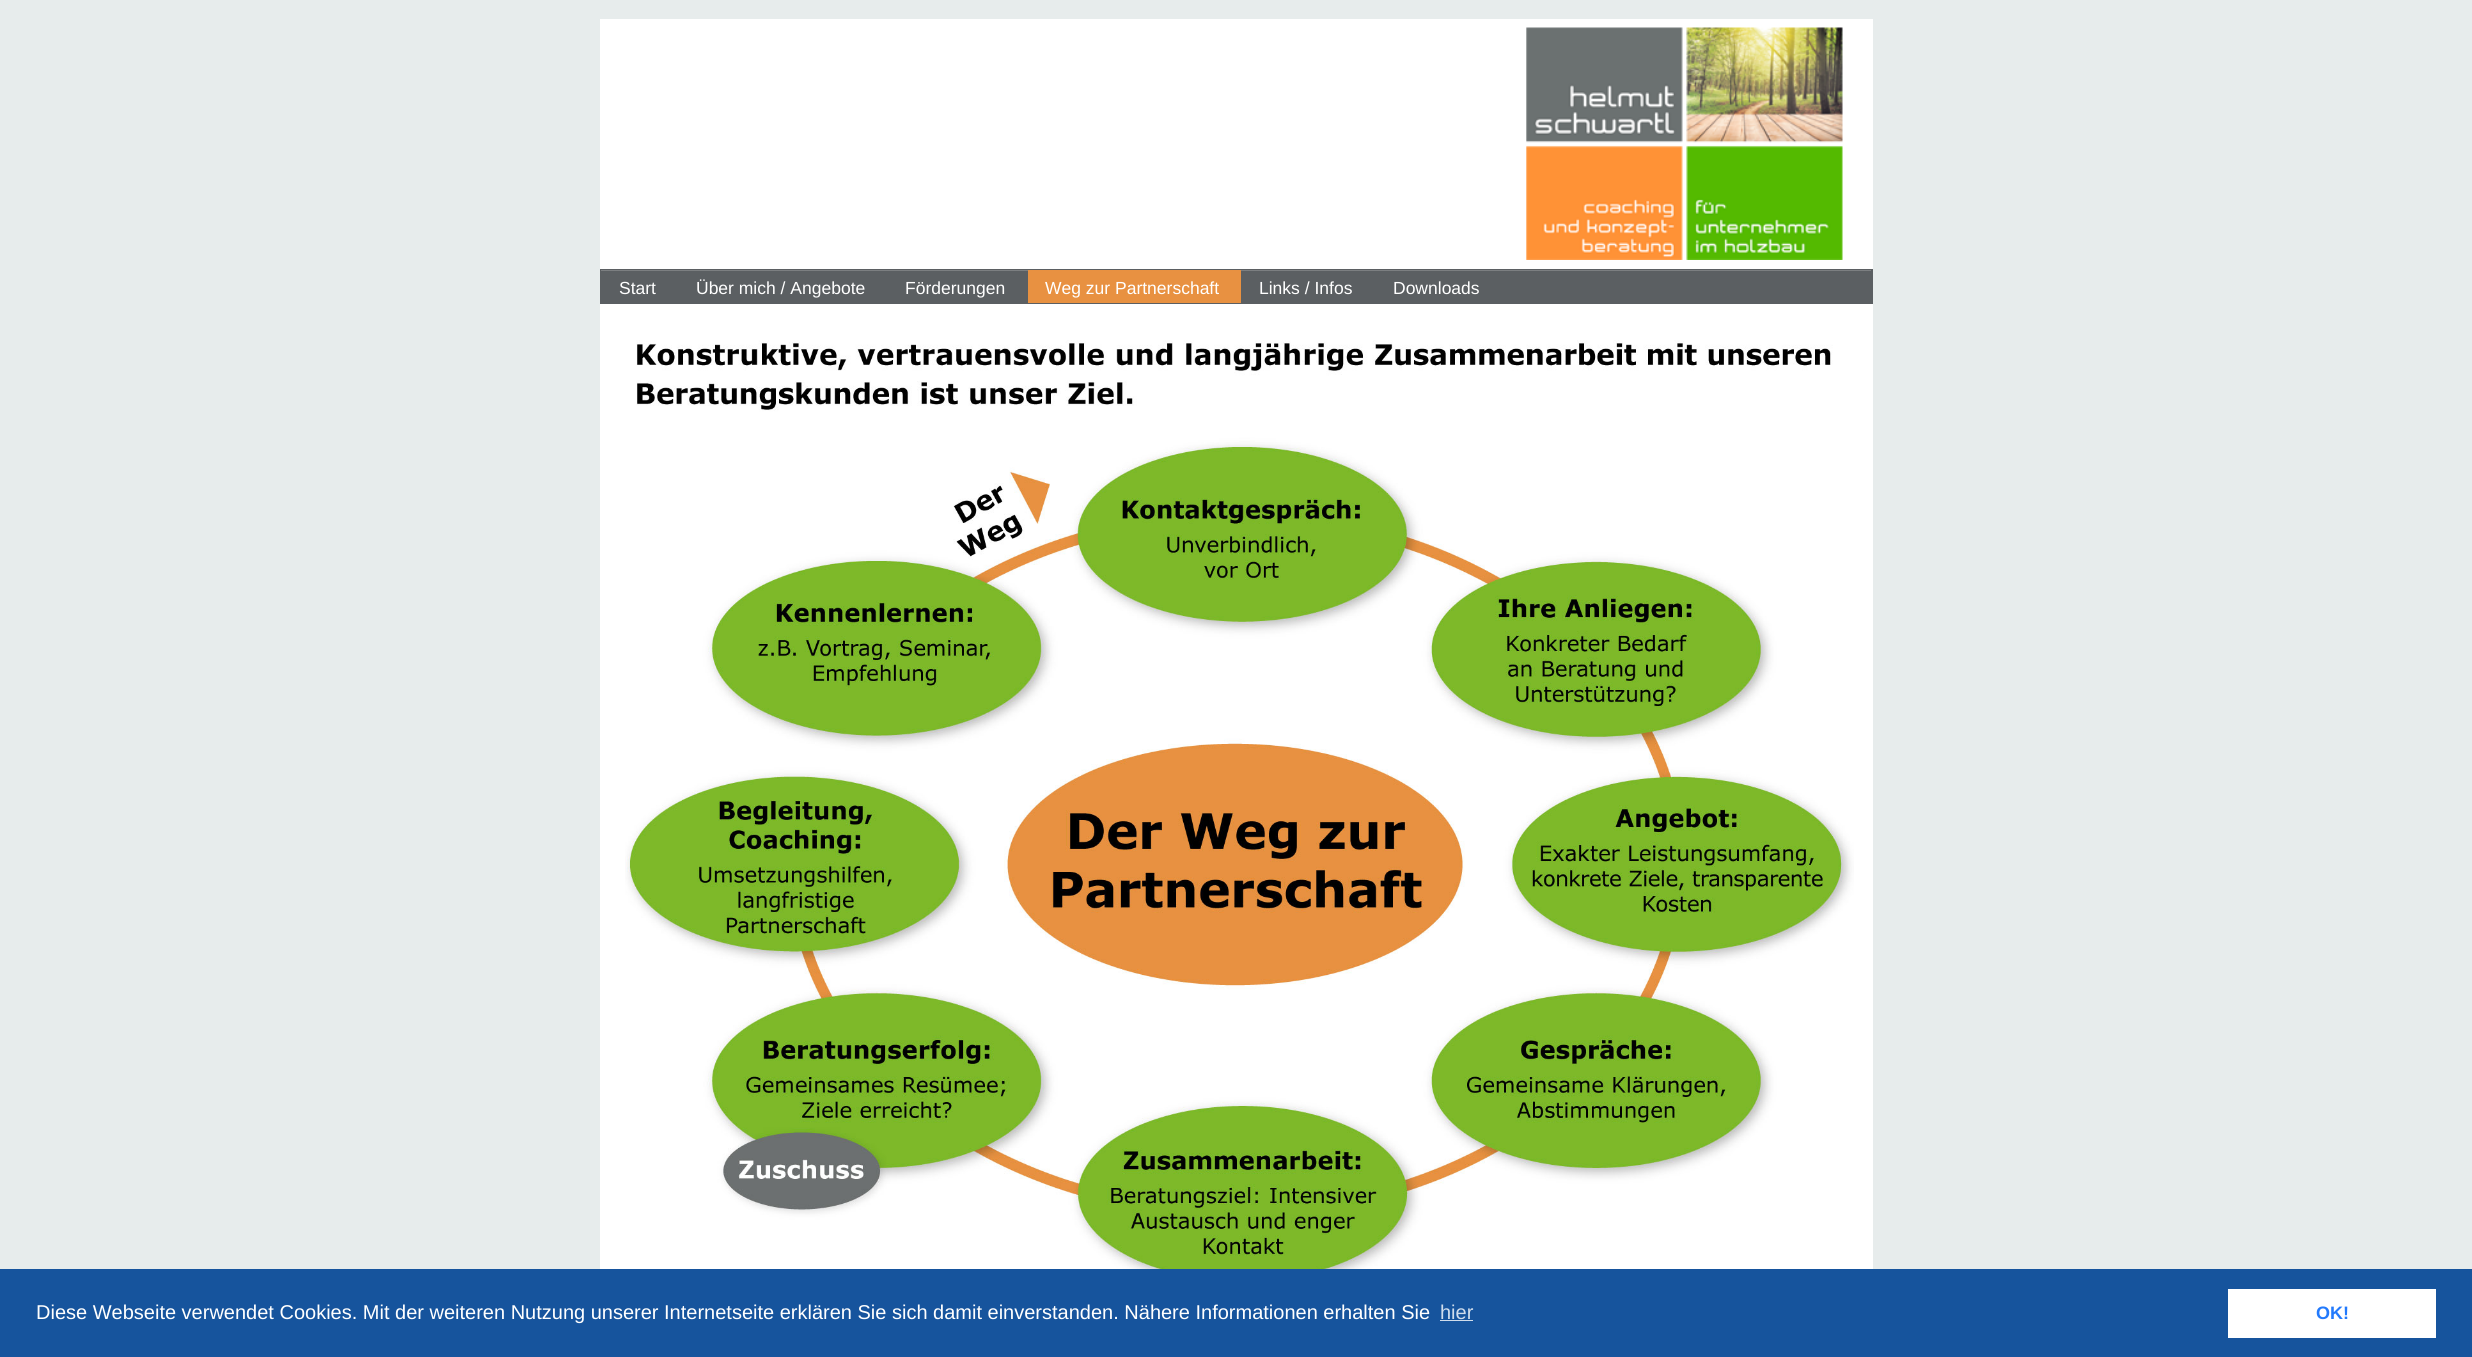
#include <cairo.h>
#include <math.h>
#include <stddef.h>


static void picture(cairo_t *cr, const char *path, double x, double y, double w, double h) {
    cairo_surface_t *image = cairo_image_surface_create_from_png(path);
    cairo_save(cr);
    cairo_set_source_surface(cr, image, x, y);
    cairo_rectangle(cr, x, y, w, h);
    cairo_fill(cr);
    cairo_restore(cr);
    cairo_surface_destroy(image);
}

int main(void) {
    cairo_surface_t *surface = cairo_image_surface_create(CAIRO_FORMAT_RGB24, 2472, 1357);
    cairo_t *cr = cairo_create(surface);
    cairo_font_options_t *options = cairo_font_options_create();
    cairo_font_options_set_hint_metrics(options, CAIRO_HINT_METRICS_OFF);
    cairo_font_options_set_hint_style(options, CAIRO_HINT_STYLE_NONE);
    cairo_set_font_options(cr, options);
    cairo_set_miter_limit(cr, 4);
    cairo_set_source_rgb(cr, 0.906, 0.925, 0.925);
    cairo_paint(cr);
    cairo_set_source_rgb(cr, 1, 1, 1);
    cairo_rectangle(cr, 600, 304, 1273, 965);
    cairo_fill(cr);
    cairo_rectangle(cr, 600, 19, 1273, 250);
    cairo_fill(cr);
    picture(cr, "img1.png", 1526, 27, 317, 233);
    cairo_set_source_rgb(cr, 0.357, 0.373, 0.384);
    cairo_rectangle(cr, 600, 269, 1273, 35);
    cairo_fill(cr);
    cairo_set_source_rgb(cr, 0.486, 0.498, 0.506);
    cairo_rectangle(cr, 601, 270, 1270, 1);
    cairo_fill(cr);
    cairo_select_font_face(cr, "Liberation Sans", CAIRO_FONT_SLANT_NORMAL, CAIRO_FONT_WEIGHT_NORMAL);
    cairo_set_font_size(cr, 17.5);
    cairo_set_source_rgb(cr, 1, 1, 1);
    cairo_move_to(cr, 619, 294);
    cairo_show_text(cr, "Start");
    cairo_move_to(cr, 696, 294);
    cairo_show_text(cr, "Über mich / Angebote");
    cairo_move_to(cr, 905, 294);
    cairo_show_text(cr, "Förderungen");
    cairo_set_source_rgb(cr, 0.91, 0.569, 0.255);
    cairo_rectangle(cr, 1028, 270, 213, 33);
    cairo_fill(cr);
    cairo_set_source_rgb(cr, 1, 1, 1);
    cairo_move_to(cr, 1045, 294);
    cairo_show_text(cr, "Weg zur Partnerschaft");
    cairo_move_to(cr, 1259, 294);
    cairo_show_text(cr, "Links / Infos");
    cairo_move_to(cr, 1393, 294);
    cairo_show_text(cr, "Downloads");
    picture(cr, "img2.png", 625, 340, 1229, 929);
    cairo_set_source_rgb(cr, 0.086, 0.329, 0.616);
    cairo_rectangle(cr, 0, 1269, 2472, 88);
    cairo_fill(cr);
    cairo_set_font_size(cr, 20);
    cairo_set_source_rgb(cr, 1, 1, 1);
    cairo_move_to(cr, 36, 1319);
    cairo_show_text(cr, "Diese Webseite verwendet Cookies. Mit der weiteren Nutzung unserer Internetseite erklären Sie sich damit einverstanden. Nähere Informationen erhalten Sie");
    cairo_set_source_rgb(cr, 0.816, 0.867, 0.922);
    cairo_move_to(cr, 1440, 1319);
    cairo_show_text(cr, "hier");
    cairo_rectangle(cr, 1440, 1320, 33, 1);
    cairo_fill(cr);
    cairo_set_source_rgb(cr, 1, 1, 1);
    cairo_rectangle(cr, 2228, 1289, 208, 49);
    cairo_fill(cr);
    cairo_select_font_face(cr, "Liberation Sans", CAIRO_FONT_SLANT_NORMAL, CAIRO_FONT_WEIGHT_BOLD);
    cairo_set_font_size(cr, 18);
    cairo_set_source_rgb(cr, 0.137, 0.478, 0.988);
    cairo_move_to(cr, 2316, 1319);
    cairo_show_text(cr, "OK!");
    cairo_surface_write_to_png(surface, "page.png");
    cairo_font_options_destroy(options);
    cairo_destroy(cr);
    cairo_surface_destroy(surface);
    return 0;
}
